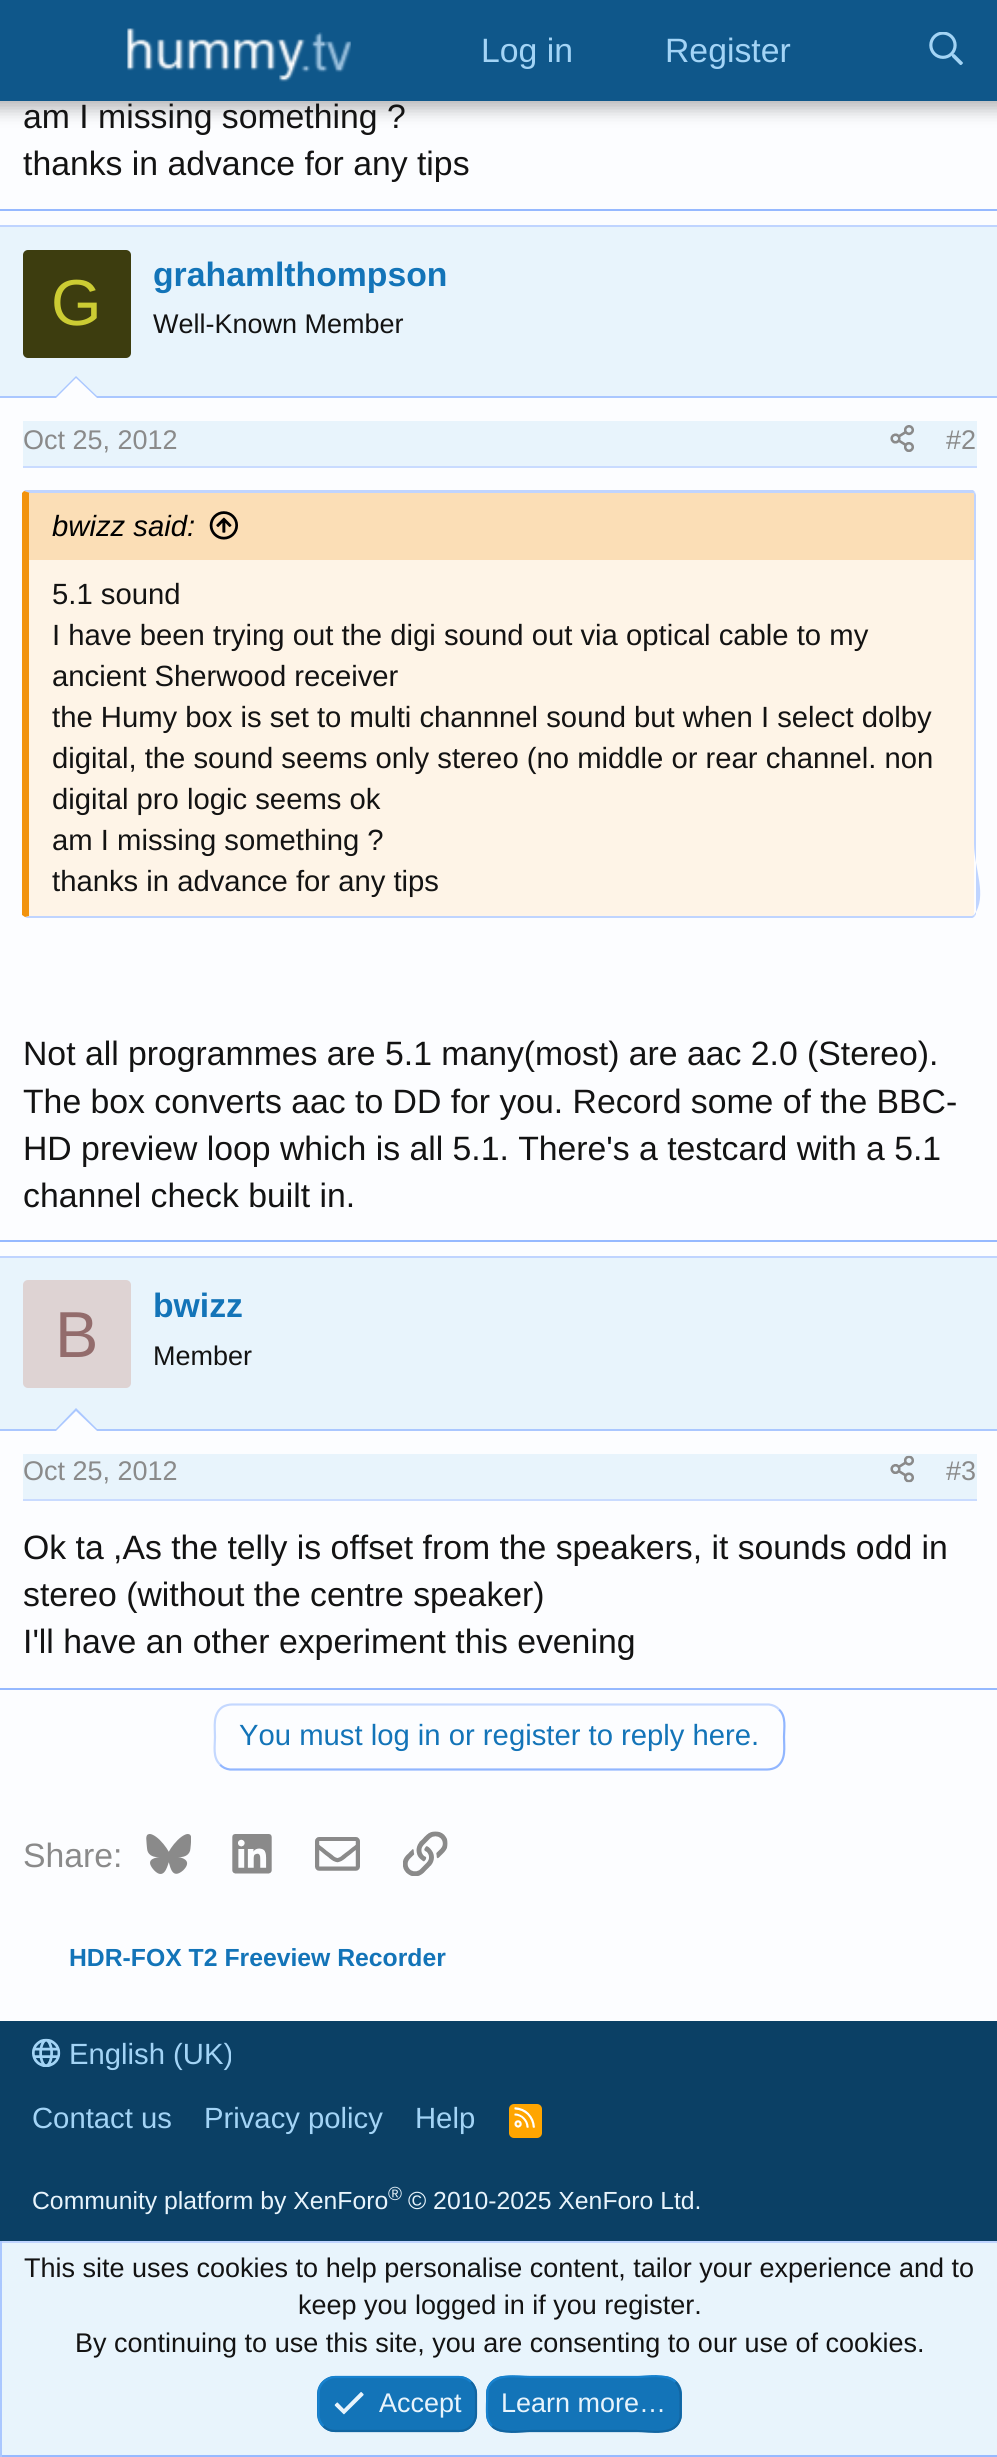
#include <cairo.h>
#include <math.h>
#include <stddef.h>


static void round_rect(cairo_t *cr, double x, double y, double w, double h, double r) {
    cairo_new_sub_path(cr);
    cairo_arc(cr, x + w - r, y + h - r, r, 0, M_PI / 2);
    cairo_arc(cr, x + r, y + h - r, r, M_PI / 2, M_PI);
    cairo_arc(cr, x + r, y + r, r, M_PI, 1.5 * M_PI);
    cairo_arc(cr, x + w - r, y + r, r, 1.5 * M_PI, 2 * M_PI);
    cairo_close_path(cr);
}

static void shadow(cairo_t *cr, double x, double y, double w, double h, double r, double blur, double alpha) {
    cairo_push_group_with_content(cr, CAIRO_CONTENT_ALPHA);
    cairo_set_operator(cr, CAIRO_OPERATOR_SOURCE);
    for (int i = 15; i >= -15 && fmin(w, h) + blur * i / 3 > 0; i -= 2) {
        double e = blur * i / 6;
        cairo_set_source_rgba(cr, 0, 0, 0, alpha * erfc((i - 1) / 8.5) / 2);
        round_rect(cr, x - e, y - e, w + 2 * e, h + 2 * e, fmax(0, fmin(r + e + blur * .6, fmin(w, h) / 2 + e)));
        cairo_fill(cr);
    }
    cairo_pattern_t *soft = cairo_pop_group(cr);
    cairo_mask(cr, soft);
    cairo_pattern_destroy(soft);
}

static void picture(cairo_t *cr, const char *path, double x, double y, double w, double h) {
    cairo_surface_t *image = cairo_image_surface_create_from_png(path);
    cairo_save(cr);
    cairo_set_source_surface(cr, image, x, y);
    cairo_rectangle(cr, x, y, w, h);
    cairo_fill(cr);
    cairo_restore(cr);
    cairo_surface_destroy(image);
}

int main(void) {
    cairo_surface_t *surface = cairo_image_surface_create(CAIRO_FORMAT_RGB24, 997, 2457);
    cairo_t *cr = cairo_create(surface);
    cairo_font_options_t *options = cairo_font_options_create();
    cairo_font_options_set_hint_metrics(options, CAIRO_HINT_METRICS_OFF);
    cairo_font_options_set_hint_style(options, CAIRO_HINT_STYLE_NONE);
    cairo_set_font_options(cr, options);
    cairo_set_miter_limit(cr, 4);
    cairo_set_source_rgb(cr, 0.988, 0.992, 1);
    cairo_paint(cr);
    cairo_set_source_rgb(cr, 0, 0, 0);
    shadow(cr, -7, -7, 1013, 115, 0, 9, 0.3);
    cairo_set_source_rgb(cr, 0.059, 0.341, 0.541);
    cairo_rectangle(cr, 0, 0, 997, 101);
    cairo_fill(cr);
    picture(cr, "img1.png", 127, 28, 224, 54);
    cairo_select_font_face(cr, "Liberation Sans", CAIRO_FONT_SLANT_NORMAL, CAIRO_FONT_WEIGHT_NORMAL);
    cairo_set_font_size(cr, 33.75);
    cairo_set_source_rgb(cr, 0.639, 0.831, 0.961);
    cairo_move_to(cr, 481, 62);
    cairo_show_text(cr, "Log in");
    cairo_move_to(cr, 665, 62);
    cairo_show_text(cr, "Register");
    picture(cr, "img2.png", 929, 32, 34, 33);
    cairo_set_source_rgb(cr, 0.588, 0.725, 1);
    cairo_rectangle(cr, 0, 209, 997, 2);
    cairo_fill(cr);
    cairo_set_source_rgb(cr, 0.078, 0.078, 0.078);
    cairo_move_to(cr, 23, 128);
    cairo_show_text(cr, "am I missing something ?");
    cairo_move_to(cr, 23, 175);
    cairo_show_text(cr, "thanks in advance for any tips");
    cairo_set_source_rgb(cr, 0.749, 0.831, 1);
    cairo_rectangle(cr, 0, 225, 997, 2);
    cairo_fill(cr);
    cairo_set_source_rgb(cr, 0.588, 0.725, 1);
    cairo_rectangle(cr, 0, 1240, 997, 2);
    cairo_fill(cr);
    cairo_set_source_rgb(cr, 0.91, 0.957, 0.988);
    cairo_rectangle(cr, 0, 227, 997, 169);
    cairo_fill(cr);
    cairo_set_source_rgb(cr, 0.667, 0.78, 1);
    cairo_rectangle(cr, 0, 396, 997, 2);
    cairo_fill(cr);
    cairo_set_source_rgb(cr, 0.239, 0.239, 0.059);
    round_rect(cr, 23, 250, 108, 108, 5);
    cairo_fill(cr);
    cairo_set_font_size(cr, 65);
    cairo_set_source_rgb(cr, 0.8, 0.8, 0.2);
    cairo_move_to(cr, 51, 325);
    cairo_show_text(cr, "G");
    cairo_select_font_face(cr, "Liberation Sans", CAIRO_FONT_SLANT_NORMAL, CAIRO_FONT_WEIGHT_BOLD);
    cairo_set_font_size(cr, 33.75);
    cairo_set_source_rgb(cr, 0.078, 0.455, 0.722);
    cairo_move_to(cr, 153, 286);
    cairo_show_text(cr, "grahamlthompson");
    cairo_select_font_face(cr, "Liberation Sans", CAIRO_FONT_SLANT_NORMAL, CAIRO_FONT_WEIGHT_NORMAL);
    cairo_set_font_size(cr, 27);
    cairo_set_source_rgb(cr, 0.078, 0.078, 0.078);
    cairo_move_to(cr, 153, 333);
    cairo_show_text(cr, "Well-Known Member");
    cairo_set_source_rgb(cr, 0.667, 0.78, 1);
    cairo_new_path(cr);
    cairo_move_to(cr, 99, 398);
    cairo_line_to(cr, 54, 398);
    cairo_line_to(cr, 76, 376);
    cairo_close_path(cr);
    cairo_fill(cr);
    cairo_set_source_rgb(cr, 0.988, 0.992, 1);
    cairo_new_path(cr);
    cairo_move_to(cr, 97, 398);
    cairo_line_to(cr, 56, 398);
    cairo_line_to(cr, 76, 378);
    cairo_close_path(cr);
    cairo_fill(cr);
    cairo_set_source_rgb(cr, 0.91, 0.957, 0.988);
    cairo_rectangle(cr, 23, 421, 954, 45);
    cairo_fill(cr);
    cairo_set_source_rgb(cr, 0.788, 0.859, 1);
    cairo_rectangle(cr, 23, 466, 954, 2);
    cairo_fill(cr);
    cairo_set_source_rgb(cr, 0.541, 0.541, 0.541);
    cairo_move_to(cr, 23, 449);
    cairo_show_text(cr, "Oct 25, 2012");
    picture(cr, "img3.png", 890, 425, 24, 27);
    cairo_move_to(cr, 946, 449);
    cairo_show_text(cr, "#2");
    cairo_set_source_rgb(cr, 0.996, 0.957, 0.906);
    cairo_new_path(cr);
    cairo_move_to(cr, 29, 493);
    cairo_line_to(cr, 972, 493);
    cairo_curve_to(cr, 973, 493, 974, 494, 974, 495);
    cairo_line_to(cr, 974, 914);
    cairo_curve_to(cr, 974, 915, 973, 916, 972, 916);
    cairo_line_to(cr, 29, 916);
    cairo_close_path(cr);
    cairo_fill(cr);
    cairo_set_source_rgb(cr, 0.749, 0.831, 1);
    cairo_new_path(cr);
    cairo_move_to(cr, 24, 491);
    cairo_line_to(cr, 25, 490);
    cairo_line_to(cr, 973, 490);
    cairo_line_to(cr, 975, 492);
    cairo_line_to(cr, 973, 494);
    cairo_line_to(cr, 972, 493);
    cairo_line_to(cr, 30, 493);
    cairo_close_path(cr);
    cairo_fill(cr);
    cairo_new_path(cr);
    cairo_move_to(cr, 975, 492);
    cairo_line_to(cr, 976, 495);
    cairo_line_to(cr, 976, 914);
    cairo_line_to(cr, 975, 916);
    cairo_line_to(cr, 974, 915);
    cairo_curve_to(cr, 988, 896, 974, 868, 974, 844);
    cairo_line_to(cr, 974, 495);
    cairo_line_to(cr, 973, 494);
    cairo_close_path(cr);
    cairo_fill(cr);
    cairo_new_path(cr);
    cairo_move_to(cr, 27, 918);
    cairo_line_to(cr, 972, 918);
    cairo_curve_to(cr, 973, 918, 974, 917, 975, 916);
    cairo_line_to(cr, 974, 915);
    cairo_line_to(cr, 972, 916);
    cairo_line_to(cr, 29, 916);
    cairo_line_to(cr, 25, 917);
    cairo_close_path(cr);
    cairo_fill(cr);
    cairo_set_source_rgb(cr, 0.949, 0.576, 0.051);
    cairo_new_path(cr);
    cairo_move_to(cr, 29, 493);
    cairo_line_to(cr, 29, 916);
    cairo_line_to(cr, 25, 917);
    cairo_line_to(cr, 22, 915);
    cairo_line_to(cr, 22, 493);
    cairo_line_to(cr, 24, 491);
    cairo_line_to(cr, 30, 493);
    cairo_close_path(cr);
    cairo_fill(cr);
    cairo_set_source_rgb(cr, 0.984, 0.871, 0.714);
    cairo_new_path(cr);
    cairo_move_to(cr, 29, 560);
    cairo_line_to(cr, 29, 493);
    cairo_line_to(cr, 973, 493);
    cairo_line_to(cr, 974, 494);
    cairo_line_to(cr, 974, 560);
    cairo_close_path(cr);
    cairo_fill(cr);
    cairo_select_font_face(cr, "Liberation Sans", CAIRO_FONT_SLANT_ITALIC, CAIRO_FONT_WEIGHT_NORMAL);
    cairo_set_font_size(cr, 29.25);
    cairo_set_source_rgb(cr, 0, 0, 0);
    cairo_move_to(cr, 52, 536);
    cairo_show_text(cr, "bwizz said:");
    picture(cr, "img4.png", 209, 511, 29, 29);
    cairo_select_font_face(cr, "Liberation Sans", CAIRO_FONT_SLANT_NORMAL, CAIRO_FONT_WEIGHT_NORMAL);
    cairo_set_source_rgb(cr, 0.078, 0.078, 0.078);
    cairo_move_to(cr, 52, 604);
    cairo_show_text(cr, "5.1 sound");
    cairo_move_to(cr, 52, 645);
    cairo_show_text(cr, "I have been trying out the digi sound out via optical cable to my");
    cairo_move_to(cr, 52, 686);
    cairo_show_text(cr, "ancient Sherwood receiver");
    cairo_move_to(cr, 52, 727);
    cairo_show_text(cr, "the Humy box is set to multi channnel sound but when I select dolby");
    cairo_move_to(cr, 52, 768);
    cairo_show_text(cr, "digital, the sound seems only stereo (no middle or rear channel. non");
    cairo_move_to(cr, 52, 809);
    cairo_show_text(cr, "digital pro logic seems ok");
    cairo_move_to(cr, 52, 850);
    cairo_show_text(cr, "am I missing something ?");
    cairo_move_to(cr, 52, 891);
    cairo_show_text(cr, "thanks in advance for any tips");
    cairo_set_font_size(cr, 33.75);
    cairo_move_to(cr, 23, 1065);
    cairo_show_text(cr, "Not all programmes are 5.1 many(most) are aac 2.0 (Stereo).");
    cairo_move_to(cr, 23, 1113);
    cairo_show_text(cr, "The box converts aac to DD for you. Record some of the BBC-");
    cairo_move_to(cr, 23, 1160);
    cairo_show_text(cr, "HD preview loop which is all 5.1. There's a testcard with a 5.1");
    cairo_move_to(cr, 23, 1207);
    cairo_show_text(cr, "channel check built in.");
    cairo_set_source_rgb(cr, 0.749, 0.831, 1);
    cairo_rectangle(cr, 0, 1256, 997, 2);
    cairo_fill(cr);
    cairo_set_source_rgb(cr, 0.588, 0.725, 1);
    cairo_rectangle(cr, 0, 1688, 997, 2);
    cairo_fill(cr);
    cairo_set_source_rgb(cr, 0.91, 0.957, 0.988);
    cairo_rectangle(cr, 0, 1258, 997, 171);
    cairo_fill(cr);
    cairo_set_source_rgb(cr, 0.667, 0.78, 1);
    cairo_rectangle(cr, 0, 1429, 997, 2);
    cairo_fill(cr);
    cairo_set_source_rgb(cr, 0.871, 0.827, 0.827);
    round_rect(cr, 23, 1280, 108, 108, 5);
    cairo_fill(cr);
    cairo_set_font_size(cr, 65);
    cairo_set_source_rgb(cr, 0.576, 0.424, 0.424);
    cairo_move_to(cr, 55, 1357);
    cairo_show_text(cr, "B");
    cairo_select_font_face(cr, "Liberation Sans", CAIRO_FONT_SLANT_NORMAL, CAIRO_FONT_WEIGHT_BOLD);
    cairo_set_font_size(cr, 33.75);
    cairo_set_source_rgb(cr, 0.078, 0.455, 0.722);
    cairo_move_to(cr, 153, 1317);
    cairo_show_text(cr, "bwizz");
    cairo_select_font_face(cr, "Liberation Sans", CAIRO_FONT_SLANT_NORMAL, CAIRO_FONT_WEIGHT_NORMAL);
    cairo_set_font_size(cr, 27);
    cairo_set_source_rgb(cr, 0.078, 0.078, 0.078);
    cairo_move_to(cr, 153, 1365);
    cairo_show_text(cr, "Member");
    cairo_set_source_rgb(cr, 0.667, 0.78, 1);
    cairo_new_path(cr);
    cairo_move_to(cr, 99, 1431);
    cairo_line_to(cr, 54, 1431);
    cairo_line_to(cr, 76, 1408);
    cairo_close_path(cr);
    cairo_fill(cr);
    cairo_set_source_rgb(cr, 0.988, 0.992, 1);
    cairo_new_path(cr);
    cairo_move_to(cr, 97, 1431);
    cairo_line_to(cr, 56, 1431);
    cairo_line_to(cr, 76, 1411);
    cairo_close_path(cr);
    cairo_fill(cr);
    cairo_set_source_rgb(cr, 0.91, 0.957, 0.988);
    cairo_rectangle(cr, 23, 1454, 954, 45);
    cairo_fill(cr);
    cairo_set_source_rgb(cr, 0.788, 0.859, 1);
    cairo_rectangle(cr, 23, 1499, 954, 2);
    cairo_fill(cr);
    cairo_set_source_rgb(cr, 0.541, 0.541, 0.541);
    cairo_move_to(cr, 23, 1480);
    cairo_show_text(cr, "Oct 25, 2012");
    picture(cr, "img5.png", 890, 1455, 24, 28);
    cairo_move_to(cr, 946, 1480);
    cairo_show_text(cr, "#3");
    cairo_set_font_size(cr, 33.75);
    cairo_set_source_rgb(cr, 0.078, 0.078, 0.078);
    cairo_move_to(cr, 23, 1559);
    cairo_show_text(cr, "Ok ta ,As the telly is offset from the speakers, it sounds odd in");
    cairo_move_to(cr, 23, 1606);
    cairo_show_text(cr, "stereo (without the centre speaker)");
    cairo_move_to(cr, 23, 1653);
    cairo_show_text(cr, "I'll have an other experiment this evening");
    cairo_new_path(cr);
    cairo_move_to(cr, 779, 1709.5);
    cairo_curve_to(cr, 786.5, 1716.5, 784, 1728, 784, 1737);
    cairo_curve_to(cr, 784, 1747.5, 786.5, 1760, 776.5, 1767);
    cairo_curve_to(cr, 774, 1768.5, 770.5, 1769.5, 767, 1769.5);
    cairo_line_to(cr, 230, 1769.5);
    cairo_curve_to(cr, 226, 1769, 222.5, 1767.5, 220, 1764.5);
    cairo_set_source_rgb(cr, 0.569, 0.714, 1);
    cairo_set_line_width(cr, 2.2);
    cairo_stroke(cr);
    cairo_new_path(cr);
    cairo_move_to(cr, 220, 1764.5);
    cairo_curve_to(cr, 212.5, 1757.5, 215, 1746, 215, 1737);
    cairo_curve_to(cr, 215, 1726.5, 212.5, 1714, 222.5, 1707);
    cairo_curve_to(cr, 225, 1705.5, 228.5, 1704.5, 232, 1704.5);
    cairo_line_to(cr, 769, 1704.5);
    cairo_curve_to(cr, 773, 1705, 776.5, 1706.5, 779, 1709.5);
    cairo_set_source_rgb(cr, 0.769, 0.847, 1);
    cairo_stroke(cr);
    cairo_set_font_size(cr, 29.25);
    cairo_set_source_rgb(cr, 0.078, 0.455, 0.722);
    cairo_move_to(cr, 239, 1745);
    cairo_show_text(cr, "You must log in or register to reply here.");
    cairo_set_font_size(cr, 33.75);
    cairo_set_source_rgb(cr, 0.541, 0.541, 0.541);
    cairo_move_to(cr, 23, 1867);
    cairo_show_text(cr, "Share:");
    picture(cr, "img6.png", 146, 1834, 45, 40);
    picture(cr, "img7.png", 232, 1834, 40, 40);
    picture(cr, "img8.png", 315, 1837, 45, 34);
    picture(cr, "img9.png", 403, 1831, 45, 45);
    cairo_select_font_face(cr, "Liberation Sans", CAIRO_FONT_SLANT_NORMAL, CAIRO_FONT_WEIGHT_BOLD);
    cairo_set_font_size(cr, 24.75);
    cairo_set_source_rgb(cr, 0.078, 0.455, 0.722);
    cairo_move_to(cr, 69, 1966);
    cairo_show_text(cr, "HDR-FOX T2 Freeview Recorder");
    cairo_set_source_rgb(cr, 0.043, 0.251, 0.396);
    cairo_rectangle(cr, 0, 2021, 997, 220);
    cairo_fill(cr);
    picture(cr, "img10.png", 32, 2038, 29, 29);
    cairo_select_font_face(cr, "Liberation Sans", CAIRO_FONT_SLANT_NORMAL, CAIRO_FONT_WEIGHT_NORMAL);
    cairo_set_font_size(cr, 29.25);
    cairo_set_source_rgb(cr, 0.639, 0.831, 0.961);
    cairo_move_to(cr, 69, 2064);
    cairo_show_text(cr, "English (UK)");
    cairo_move_to(cr, 32, 2128);
    cairo_show_text(cr, "Contact us");
    cairo_move_to(cr, 204, 2128);
    cairo_show_text(cr, "Privacy policy");
    cairo_move_to(cr, 415, 2128);
    cairo_show_text(cr, "Help");
    cairo_set_source_rgb(cr, 1, 0.647, 0);
    round_rect(cr, 509, 2104, 33, 34, 5);
    cairo_fill(cr);
    picture(cr, "img11.png", 514, 2107, 21, 21);
    cairo_set_font_size(cr, 24.75);
    cairo_set_source_rgb(cr, 0.91, 0.957, 0.988);
    cairo_move_to(cr, 32, 2209);
    cairo_show_text(cr, "Community platform by XenForo");
    cairo_set_font_size(cr, 19);
    cairo_move_to(cr, 388, 2200);
    cairo_show_text(cr, "®");
    cairo_set_font_size(cr, 24.75);
    cairo_move_to(cr, 408, 2209);
    cairo_show_text(cr, "© 2010-2025 XenForo Ltd.");
    cairo_rectangle(cr, 2, 2243, 995, 212);
    cairo_fill(cr);
    cairo_set_source_rgb(cr, 0.749, 0.831, 1);
    cairo_rectangle(cr, 0, 2241, 997, 2);
    cairo_fill(cr);
    cairo_set_source_rgb(cr, 0.588, 0.725, 1);
    cairo_rectangle(cr, 0, 2455, 997, 2);
    cairo_fill(cr);
    cairo_set_source_rgb(cr, 0.667, 0.78, 1);
    cairo_rectangle(cr, 0, 2241, 2, 216);
    cairo_fill(cr);
    cairo_set_font_size(cr, 27);
    cairo_set_source_rgb(cr, 0.078, 0.078, 0.078);
    cairo_move_to(cr, 24, 2277);
    cairo_show_text(cr, "This site uses cookies to help personalise content, tailor your experience and to");
    cairo_move_to(cr, 298, 2314);
    cairo_show_text(cr, "keep you logged in if you register.");
    cairo_move_to(cr, 75, 2352);
    cairo_show_text(cr, "By continuing to use this site, you are consenting to our use of cookies.");
    cairo_set_source_rgb(cr, 0.078, 0.455, 0.722);
    round_rect(cr, 317, 2376, 160, 56, 18);
    cairo_fill(cr);
    cairo_new_path(cr);
    cairo_move_to(cr, 471, 2382);
    cairo_curve_to(cr, 474, 2385, 476, 2389.5, 476, 2394);
    cairo_line_to(cr, 476, 2414);
    cairo_curve_to(cr, 476, 2418.5, 474, 2423, 471, 2426);
    cairo_curve_to(cr, 468, 2429.5, 463.5, 2431, 459, 2431);
    cairo_line_to(cr, 335, 2431);
    cairo_curve_to(cr, 331, 2431, 326.5, 2429.5, 323.5, 2426);
    cairo_set_source_rgb(cr, 0.071, 0.396, 0.631);
    cairo_stroke(cr);
    cairo_new_path(cr);
    cairo_move_to(cr, 323.5, 2426);
    cairo_curve_to(cr, 320, 2423, 318.5, 2418.5, 318.5, 2414);
    cairo_line_to(cr, 318.5, 2394);
    cairo_curve_to(cr, 318.5, 2389.5, 320, 2385, 323.5, 2382);
    cairo_curve_to(cr, 326.5, 2379, 331, 2377, 335, 2377);
    cairo_line_to(cr, 459, 2377);
    cairo_curve_to(cr, 463.5, 2377, 468, 2379, 471, 2382);
    cairo_set_source_rgb(cr, 0.09, 0.51, 0.812);
    cairo_stroke(cr);
    picture(cr, "img12.png", 334, 2392, 30, 23);
    cairo_set_source_rgb(cr, 0.91, 0.957, 0.988);
    cairo_move_to(cr, 379, 2412);
    cairo_show_text(cr, "Accept");
    cairo_set_source_rgb(cr, 0.078, 0.455, 0.722);
    round_rect(cr, 486, 2376, 196, 56, 18);
    cairo_fill(cr);
    cairo_new_path(cr);
    cairo_move_to(cr, 675.5, 2382);
    cairo_curve_to(cr, 681.5, 2388, 680.5, 2396.5, 680.5, 2404);
    cairo_line_to(cr, 680.5, 2417.5);
    cairo_curve_to(cr, 676.5, 2437, 650, 2431, 637, 2431);
    cairo_line_to(cr, 530.5, 2431);
    cairo_curve_to(cr, 522.5, 2431, 501, 2435, 492, 2426);
    cairo_set_source_rgb(cr, 0.071, 0.396, 0.631);
    cairo_stroke(cr);
    cairo_new_path(cr);
    cairo_move_to(cr, 492, 2426);
    cairo_curve_to(cr, 486, 2420, 487, 2412, 487, 2404);
    cairo_line_to(cr, 487.5, 2390.5);
    cairo_curve_to(cr, 491.5, 2371.5, 518, 2377, 530.5, 2377);
    cairo_line_to(cr, 637, 2377);
    cairo_curve_to(cr, 645.5, 2377, 666.5, 2373, 675.5, 2382);
    cairo_set_source_rgb(cr, 0.09, 0.51, 0.812);
    cairo_stroke(cr);
    cairo_set_source_rgb(cr, 0.91, 0.957, 0.988);
    cairo_move_to(cr, 501, 2412);
    cairo_show_text(cr, "Learn more…");
    cairo_surface_write_to_png(surface, "page.png");
    cairo_font_options_destroy(options);
    cairo_destroy(cr);
    cairo_surface_destroy(surface);
    return 0;
}
